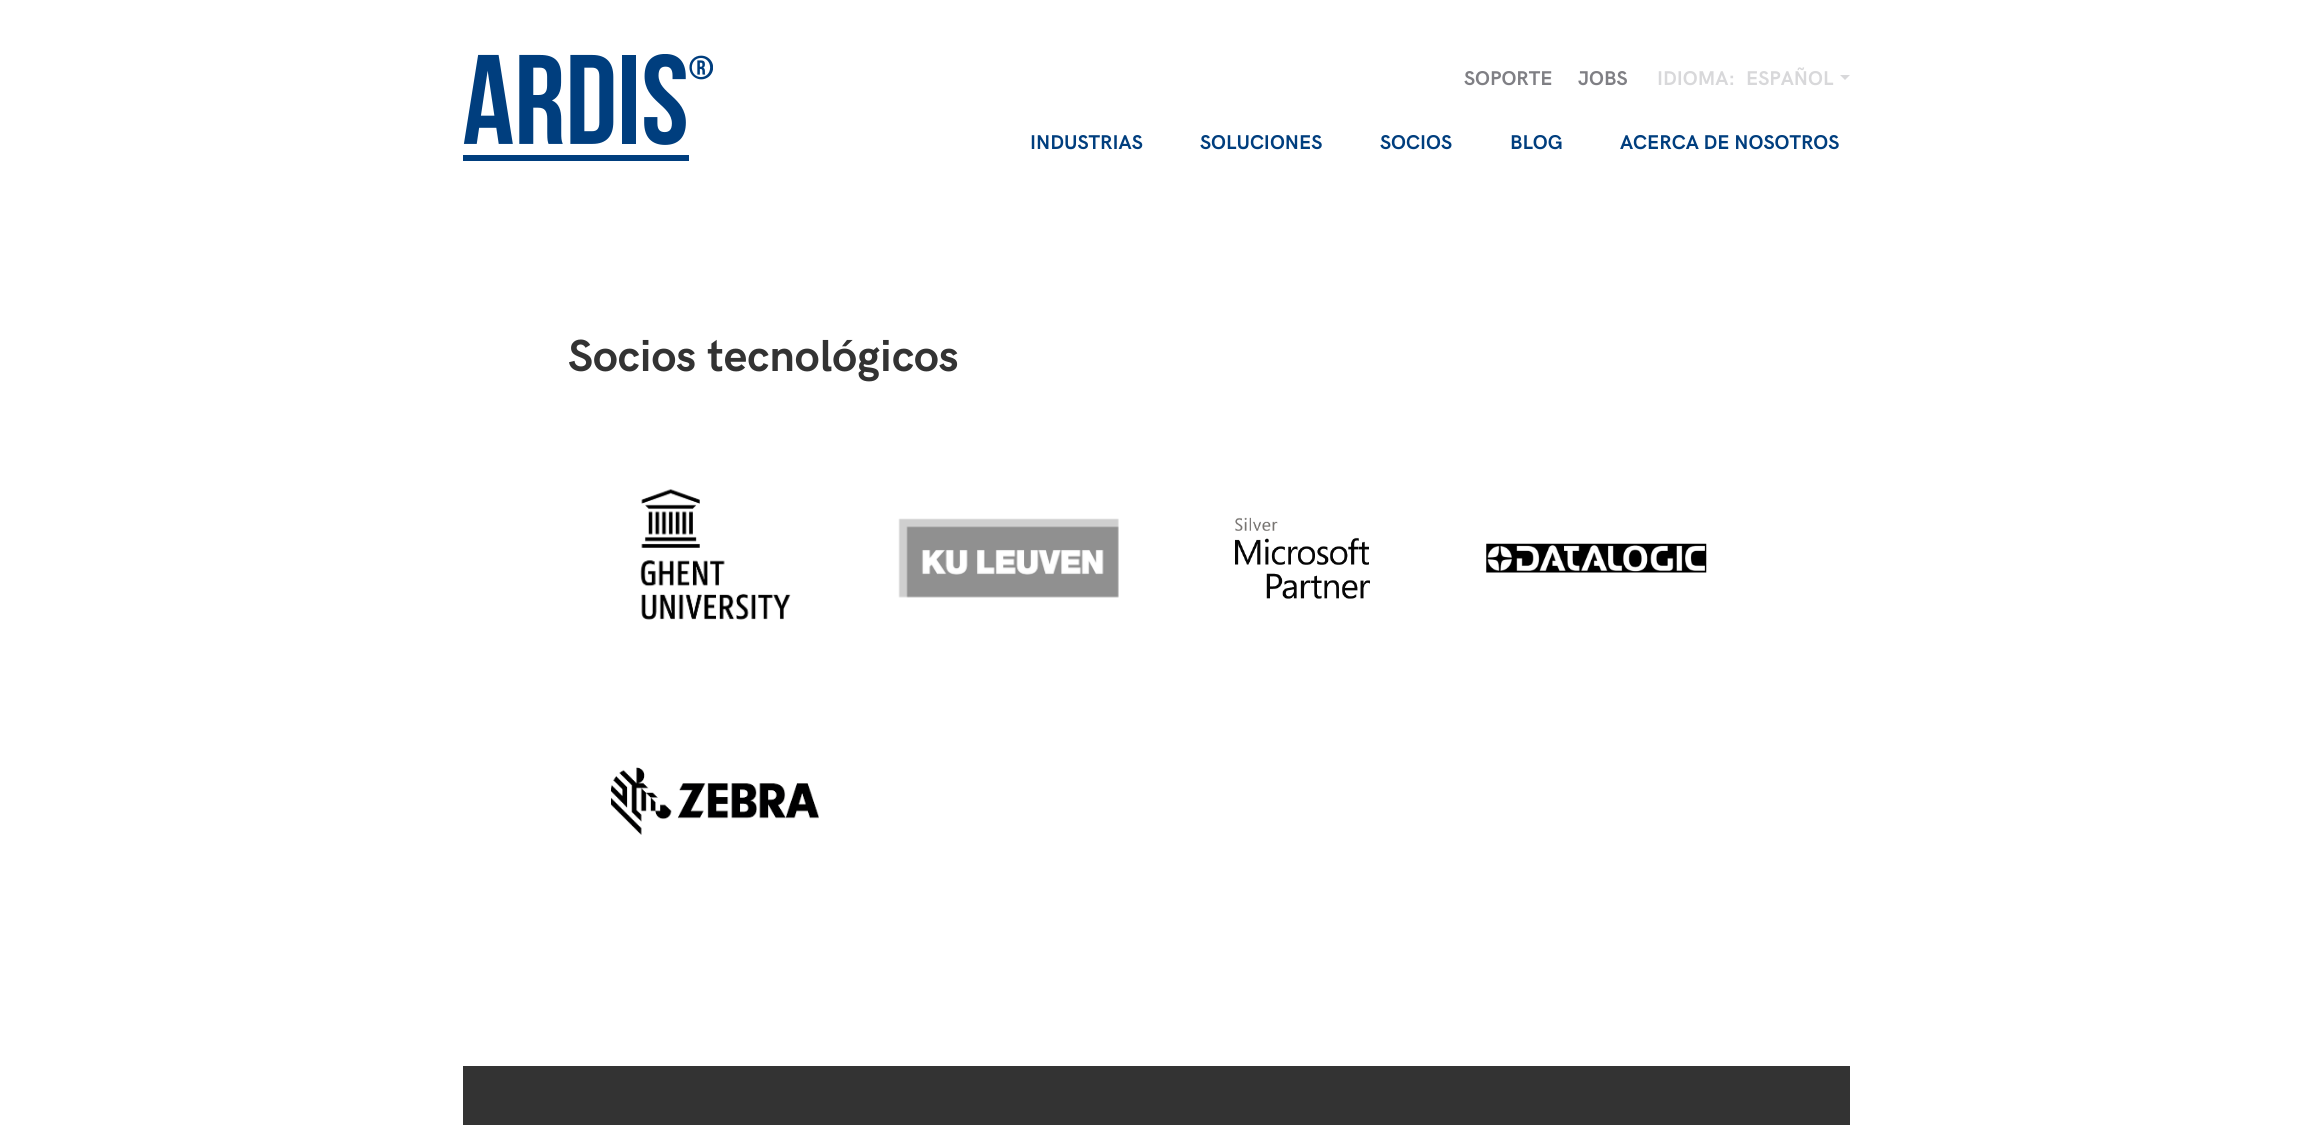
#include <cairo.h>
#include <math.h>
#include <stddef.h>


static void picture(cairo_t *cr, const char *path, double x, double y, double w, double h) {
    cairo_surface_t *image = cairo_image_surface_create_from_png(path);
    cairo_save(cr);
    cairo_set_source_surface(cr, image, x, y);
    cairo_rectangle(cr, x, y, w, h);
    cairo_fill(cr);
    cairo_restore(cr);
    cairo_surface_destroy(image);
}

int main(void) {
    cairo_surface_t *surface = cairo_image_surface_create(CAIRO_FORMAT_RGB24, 2311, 1125);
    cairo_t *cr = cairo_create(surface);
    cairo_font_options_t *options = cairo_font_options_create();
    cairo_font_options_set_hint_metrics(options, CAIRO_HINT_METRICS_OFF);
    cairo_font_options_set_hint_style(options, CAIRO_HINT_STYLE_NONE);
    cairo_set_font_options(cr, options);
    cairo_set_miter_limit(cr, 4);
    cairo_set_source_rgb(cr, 1, 1, 1);
    cairo_paint(cr);
    cairo_select_font_face(cr, "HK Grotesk", CAIRO_FONT_SLANT_NORMAL, CAIRO_FONT_WEIGHT_BOLD);
    cairo_set_font_size(cr, 20);
    cairo_set_source_rgb(cr, 0.498, 0.498, 0.518);
    cairo_move_to(cr, 1464, 85);
    cairo_show_text(cr, "SOPORTE");
    cairo_move_to(cr, 1578, 85);
    cairo_show_text(cr, "JOBS");
    cairo_set_source_rgb(cr, 0.847, 0.847, 0.855);
    cairo_move_to(cr, 1657, 85);
    cairo_show_text(cr, "IDIOMA:");
    cairo_move_to(cr, 1746, 85);
    cairo_show_text(cr, "ESPAÑOL");
    cairo_new_path(cr);
    cairo_move_to(cr, 1840, 75);
    cairo_line_to(cr, 1850, 75);
    cairo_line_to(cr, 1845, 80);
    cairo_close_path(cr);
    cairo_fill(cr);
    picture(cr, "img1.png", 463, 54, 250, 107);
    cairo_set_source_rgb(cr, 0, 0.243, 0.494);
    cairo_move_to(cr, 1030, 149);
    cairo_show_text(cr, "INDUSTRIAS");
    cairo_move_to(cr, 1200, 149);
    cairo_show_text(cr, "SOLUCIONES");
    cairo_move_to(cr, 1380, 149);
    cairo_show_text(cr, "SOCIOS");
    cairo_move_to(cr, 1510, 149);
    cairo_show_text(cr, "BLOG");
    cairo_move_to(cr, 1620, 149);
    cairo_show_text(cr, "ACERCA DE NOSOTROS");
    cairo_set_font_size(cr, 45);
    cairo_set_source_rgb(cr, 0.2, 0.2, 0.2);
    cairo_move_to(cr, 568, 371);
    cairo_show_text(cr, "Socios tecnológicos");
    picture(cr, "img2.png", 640, 489, 151, 131);
    picture(cr, "img3.png", 898, 518, 221, 80);
    picture(cr, "img4.png", 1235, 517, 135, 82);
    picture(cr, "img5.png", 1486, 543, 221, 30);
    picture(cr, "img6.png", 610, 767, 209, 68);
    cairo_rectangle(cr, 463, 1066, 1387, 59);
    cairo_fill(cr);
    cairo_surface_write_to_png(surface, "page.png");
    cairo_font_options_destroy(options);
    cairo_destroy(cr);
    cairo_surface_destroy(surface);
    return 0;
}
